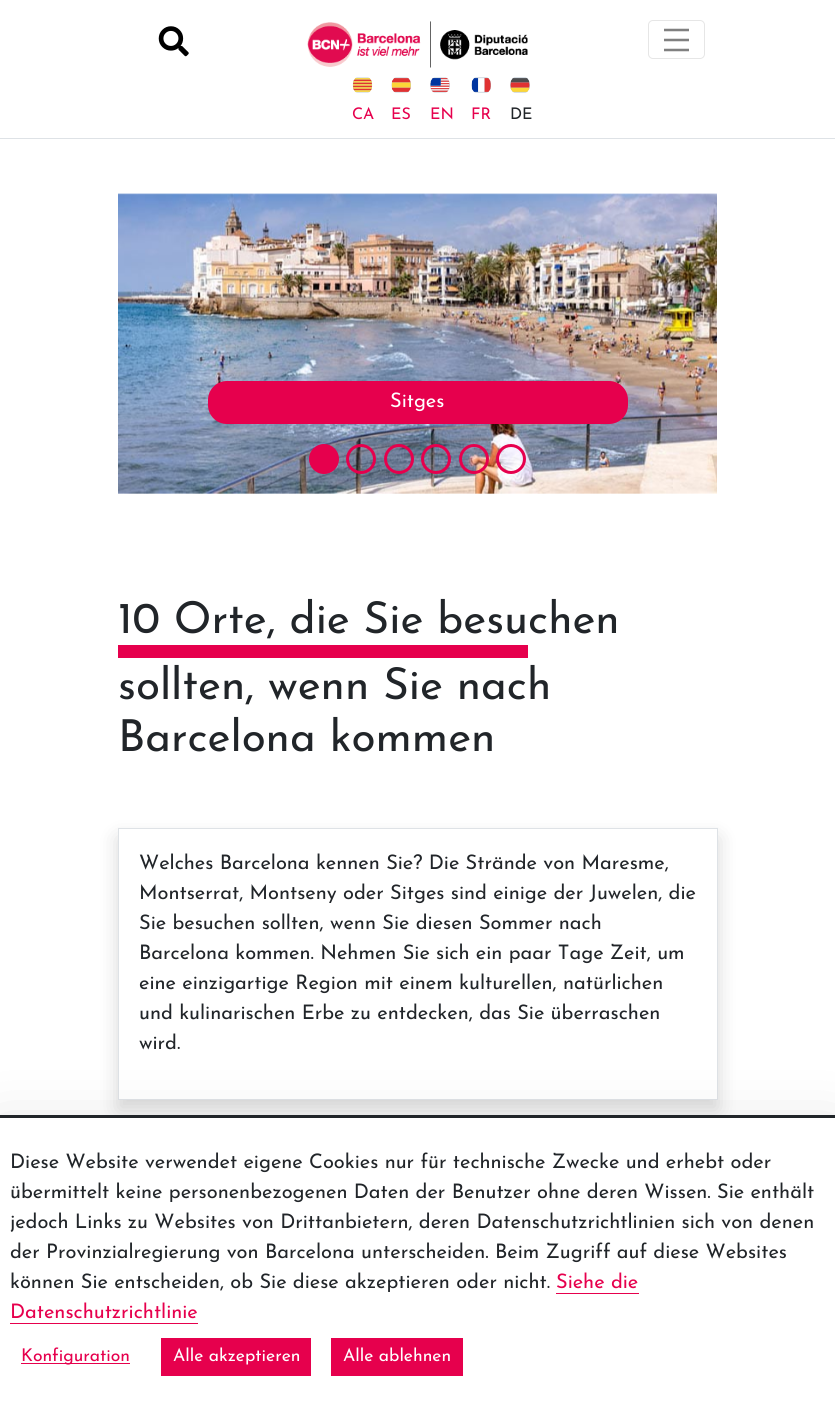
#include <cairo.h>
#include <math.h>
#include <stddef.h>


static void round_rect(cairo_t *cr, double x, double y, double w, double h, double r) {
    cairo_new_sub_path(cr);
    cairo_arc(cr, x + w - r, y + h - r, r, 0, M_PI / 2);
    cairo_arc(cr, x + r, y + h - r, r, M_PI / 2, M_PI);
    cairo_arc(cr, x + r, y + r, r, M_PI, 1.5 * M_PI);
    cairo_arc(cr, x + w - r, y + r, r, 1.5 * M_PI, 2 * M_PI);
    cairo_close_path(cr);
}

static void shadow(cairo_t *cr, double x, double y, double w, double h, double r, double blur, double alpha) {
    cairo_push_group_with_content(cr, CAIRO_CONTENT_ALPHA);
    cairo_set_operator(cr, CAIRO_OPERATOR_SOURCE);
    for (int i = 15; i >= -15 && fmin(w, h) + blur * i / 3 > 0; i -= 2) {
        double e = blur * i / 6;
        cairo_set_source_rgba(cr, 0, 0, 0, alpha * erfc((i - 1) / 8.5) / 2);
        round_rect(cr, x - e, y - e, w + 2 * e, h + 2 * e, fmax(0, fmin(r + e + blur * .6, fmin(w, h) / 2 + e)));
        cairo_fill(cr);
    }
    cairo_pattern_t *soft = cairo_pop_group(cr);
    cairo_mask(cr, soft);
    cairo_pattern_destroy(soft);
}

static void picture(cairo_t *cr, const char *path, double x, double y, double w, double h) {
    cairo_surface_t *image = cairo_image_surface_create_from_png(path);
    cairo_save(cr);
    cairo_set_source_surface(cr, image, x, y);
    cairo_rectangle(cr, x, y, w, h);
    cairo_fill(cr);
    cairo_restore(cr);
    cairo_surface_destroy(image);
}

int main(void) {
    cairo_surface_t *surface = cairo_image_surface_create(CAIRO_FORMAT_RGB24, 835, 1406);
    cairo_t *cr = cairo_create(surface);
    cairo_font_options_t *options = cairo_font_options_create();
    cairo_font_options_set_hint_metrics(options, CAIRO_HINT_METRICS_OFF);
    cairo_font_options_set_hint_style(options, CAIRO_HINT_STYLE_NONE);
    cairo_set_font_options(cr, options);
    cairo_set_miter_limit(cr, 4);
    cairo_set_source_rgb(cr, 1, 1, 1);
    cairo_paint(cr);
    cairo_set_source_rgb(cr, 0.871, 0.886, 0.902);
    cairo_rectangle(cr, 0, 138, 835, 1);
    cairo_fill(cr);
    picture(cr, "img1.png", 158, 26, 31, 31);
    picture(cr, "img2.png", 307, 21, 221, 47);
    round_rect(cr, 648.5, 20.5, 56, 38, 4.5);
    cairo_set_source_rgb(cr, 0.902, 0.902, 0.902);
    cairo_set_line_width(cr, 1);
    cairo_stroke(cr);
    cairo_save(cr);
    cairo_rectangle(cr, 664, 28, 25, 25);
    cairo_clip(cr);
    cairo_new_path(cr);
    cairo_move_to(cr, 662.5, 30);
    cairo_line_to(cr, 690, 30);
    cairo_move_to(cr, 662.5, 40);
    cairo_line_to(cr, 690, 40);
    cairo_move_to(cr, 662.5, 50);
    cairo_line_to(cr, 690, 50);
    cairo_set_source_rgb(cr, 0.502, 0.502, 0.502);
    cairo_set_line_width(cr, 2.5);
    cairo_set_line_cap(cr, CAIRO_LINE_CAP_ROUND);
    cairo_stroke(cr);
    cairo_restore(cr);
    picture(cr, "img3.png", 352, 77, 21, 16);
    cairo_select_font_face(cr, "Josefin Sans Thin", CAIRO_FONT_SLANT_NORMAL, CAIRO_FONT_WEIGHT_NORMAL);
    cairo_set_font_size(cr, 16);
    cairo_set_source_rgb(cr, 0.902, 0, 0.302);
    cairo_move_to(cr, 352, 119);
    cairo_show_text(cr, "CA");
    picture(cr, "img4.png", 391, 77, 20, 16);
    cairo_move_to(cr, 391, 119);
    cairo_show_text(cr, "ES");
    picture(cr, "img5.png", 430, 77, 20, 16);
    cairo_move_to(cr, 430, 119);
    cairo_show_text(cr, "EN");
    picture(cr, "img6.png", 471, 77, 20, 16);
    cairo_move_to(cr, 471, 119);
    cairo_show_text(cr, "FR");
    picture(cr, "img7.png", 510, 77, 20, 16);
    cairo_set_source_rgb(cr, 0.129, 0.145, 0.161);
    cairo_move_to(cr, 510, 119);
    cairo_show_text(cr, "DE");
    picture(cr, "img8.png", 118, 193, 599, 301);
    cairo_set_source_rgb(cr, 0.902, 0, 0.302);
    round_rect(cr, 208, 381, 420, 43, 19);
    cairo_fill(cr);
    cairo_set_font_size(cr, 20);
    cairo_set_source_rgb(cr, 1, 1, 1);
    cairo_move_to(cr, 390, 407);
    cairo_show_text(cr, "Sitges");
    cairo_set_source_rgb(cr, 0.902, 0, 0.302);
    cairo_new_path(cr);
    cairo_arc(cr, 324, 459, 15, 0, 2 * M_PI);
    cairo_fill(cr);
    cairo_arc(cr, 361, 459, 13.5, 0, 2 * M_PI);
    cairo_set_line_width(cr, 3);
    cairo_stroke(cr);
    cairo_arc(cr, 399, 459, 13.5, 0, 2 * M_PI);
    cairo_stroke(cr);
    cairo_arc(cr, 436, 459, 13.5, 0, 2 * M_PI);
    cairo_stroke(cr);
    cairo_arc(cr, 474, 459, 13.5, 0, 2 * M_PI);
    cairo_stroke(cr);
    cairo_arc(cr, 511, 459, 13.5, 0, 2 * M_PI);
    cairo_stroke(cr);
    cairo_set_font_size(cr, 44);
    cairo_set_source_rgb(cr, 0.129, 0.145, 0.161);
    cairo_move_to(cr, 118, 633);
    cairo_show_text(cr, "10 Orte, die Sie besuchen");
    cairo_set_source_rgb(cr, 0.902, 0, 0.302);
    cairo_rectangle(cr, 118, 645, 410, 13);
    cairo_fill(cr);
    cairo_set_source_rgb(cr, 0.129, 0.145, 0.161);
    cairo_move_to(cr, 118, 699);
    cairo_show_text(cr, "sollten, wenn Sie nach");
    cairo_move_to(cr, 118, 751);
    cairo_show_text(cr, "Barcelona kommen");
    cairo_save(cr);
    cairo_set_fill_rule(cr, CAIRO_FILL_RULE_EVEN_ODD);
    cairo_new_path(cr);
    cairo_move_to(cr, 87, 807);
    cairo_line_to(cr, 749, 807);
    cairo_line_to(cr, 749, 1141);
    cairo_line_to(cr, 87, 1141);
    cairo_close_path(cr);
    cairo_move_to(cr, 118, 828);
    cairo_line_to(cr, 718, 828);
    cairo_line_to(cr, 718, 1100);
    cairo_line_to(cr, 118, 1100);
    cairo_close_path(cr);
    cairo_clip(cr);
    cairo_set_source_rgb(cr, 0, 0, 0);
    shadow(cr, 118, 838, 600, 272, 0, 10, 0.15);
    cairo_restore(cr);
    cairo_rectangle(cr, 118.5, 828.5, 599, 271);
    cairo_set_source_rgb(cr, 0.871, 0.886, 0.902);
    cairo_set_line_width(cr, 1);
    cairo_stroke(cr);
    cairo_set_font_size(cr, 20);
    cairo_set_source_rgb(cr, 0.129, 0.145, 0.161);
    cairo_move_to(cr, 139, 869);
    cairo_show_text(cr, "Welches Barcelona kennen Sie? Die Strände von Maresme,");
    cairo_move_to(cr, 139, 899);
    cairo_show_text(cr, "Montserrat, Montseny oder Sitges sind einige der Juwelen, die");
    cairo_move_to(cr, 139, 929);
    cairo_show_text(cr, "Sie besuchen sollten, wenn Sie diesen Sommer nach");
    cairo_move_to(cr, 139, 959);
    cairo_show_text(cr, "Barcelona kommen. Nehmen Sie sich ein paar Tage Zeit, um");
    cairo_move_to(cr, 139, 989);
    cairo_show_text(cr, "eine einzigartige Region mit einem kulturellen, natürlichen");
    cairo_move_to(cr, 139, 1019);
    cairo_show_text(cr, "und kulinarischen Erbe zu entdecken, das Sie überraschen");
    cairo_move_to(cr, 139, 1049);
    cairo_show_text(cr, "wird.");
    cairo_set_source_rgb(cr, 0, 0, 0);
    shadow(cr, 0, 1135, 835, 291, 0, 30, 0.18);
    cairo_set_source_rgb(cr, 1, 1, 1);
    cairo_rectangle(cr, 0, 1118, 835, 288);
    cairo_fill(cr);
    cairo_set_source_rgb(cr, 0.129, 0.145, 0.161);
    cairo_rectangle(cr, 0, 1115, 835, 3);
    cairo_fill(cr);
    cairo_move_to(cr, 10, 1168);
    cairo_show_text(cr, "Diese Website verwendet eigene Cookies nur für technische Zwecke und erhebt oder");
    cairo_move_to(cr, 10, 1198);
    cairo_show_text(cr, "übermittelt keine personenbezogenen Daten der Benutzer ohne deren Wissen. Sie enthält");
    cairo_move_to(cr, 10, 1228);
    cairo_show_text(cr, "jedoch Links zu Websites von Drittanbietern, deren Datenschutzrichtlinien sich von denen");
    cairo_move_to(cr, 10, 1258);
    cairo_show_text(cr, "der Provinzialregierung von Barcelona unterscheiden. Beim Zugriff auf diese Websites");
    cairo_move_to(cr, 10, 1288);
    cairo_show_text(cr, "können Sie entscheiden, ob Sie diese akzeptieren oder nicht.");
    cairo_set_source_rgb(cr, 0.902, 0, 0.302);
    cairo_move_to(cr, 556, 1288);
    cairo_show_text(cr, "Siehe die");
    cairo_rectangle(cr, 556, 1293, 83, 1);
    cairo_fill(cr);
    cairo_move_to(cr, 10, 1318);
    cairo_show_text(cr, "Datenschutzrichtlinie");
    cairo_rectangle(cr, 10, 1323, 188, 1);
    cairo_fill(cr);
    cairo_rectangle(cr, 21, 1363, 109, 1);
    cairo_fill(cr);
    cairo_set_font_size(cr, 17.5);
    cairo_move_to(cr, 21, 1361);
    cairo_show_text(cr, "Konfiguration");
    cairo_rectangle(cr, 161, 1338, 150, 38);
    cairo_fill(cr);
    cairo_set_source_rgb(cr, 1, 1, 1);
    cairo_move_to(cr, 173, 1361);
    cairo_show_text(cr, "Alle akzeptieren");
    cairo_set_source_rgb(cr, 0.902, 0, 0.302);
    cairo_rectangle(cr, 331, 1338, 132, 38);
    cairo_fill(cr);
    cairo_set_source_rgb(cr, 1, 1, 1);
    cairo_move_to(cr, 343, 1361);
    cairo_show_text(cr, "Alle ablehnen");
    cairo_surface_write_to_png(surface, "page.png");
    cairo_font_options_destroy(options);
    cairo_destroy(cr);
    cairo_surface_destroy(surface);
    return 0;
}
